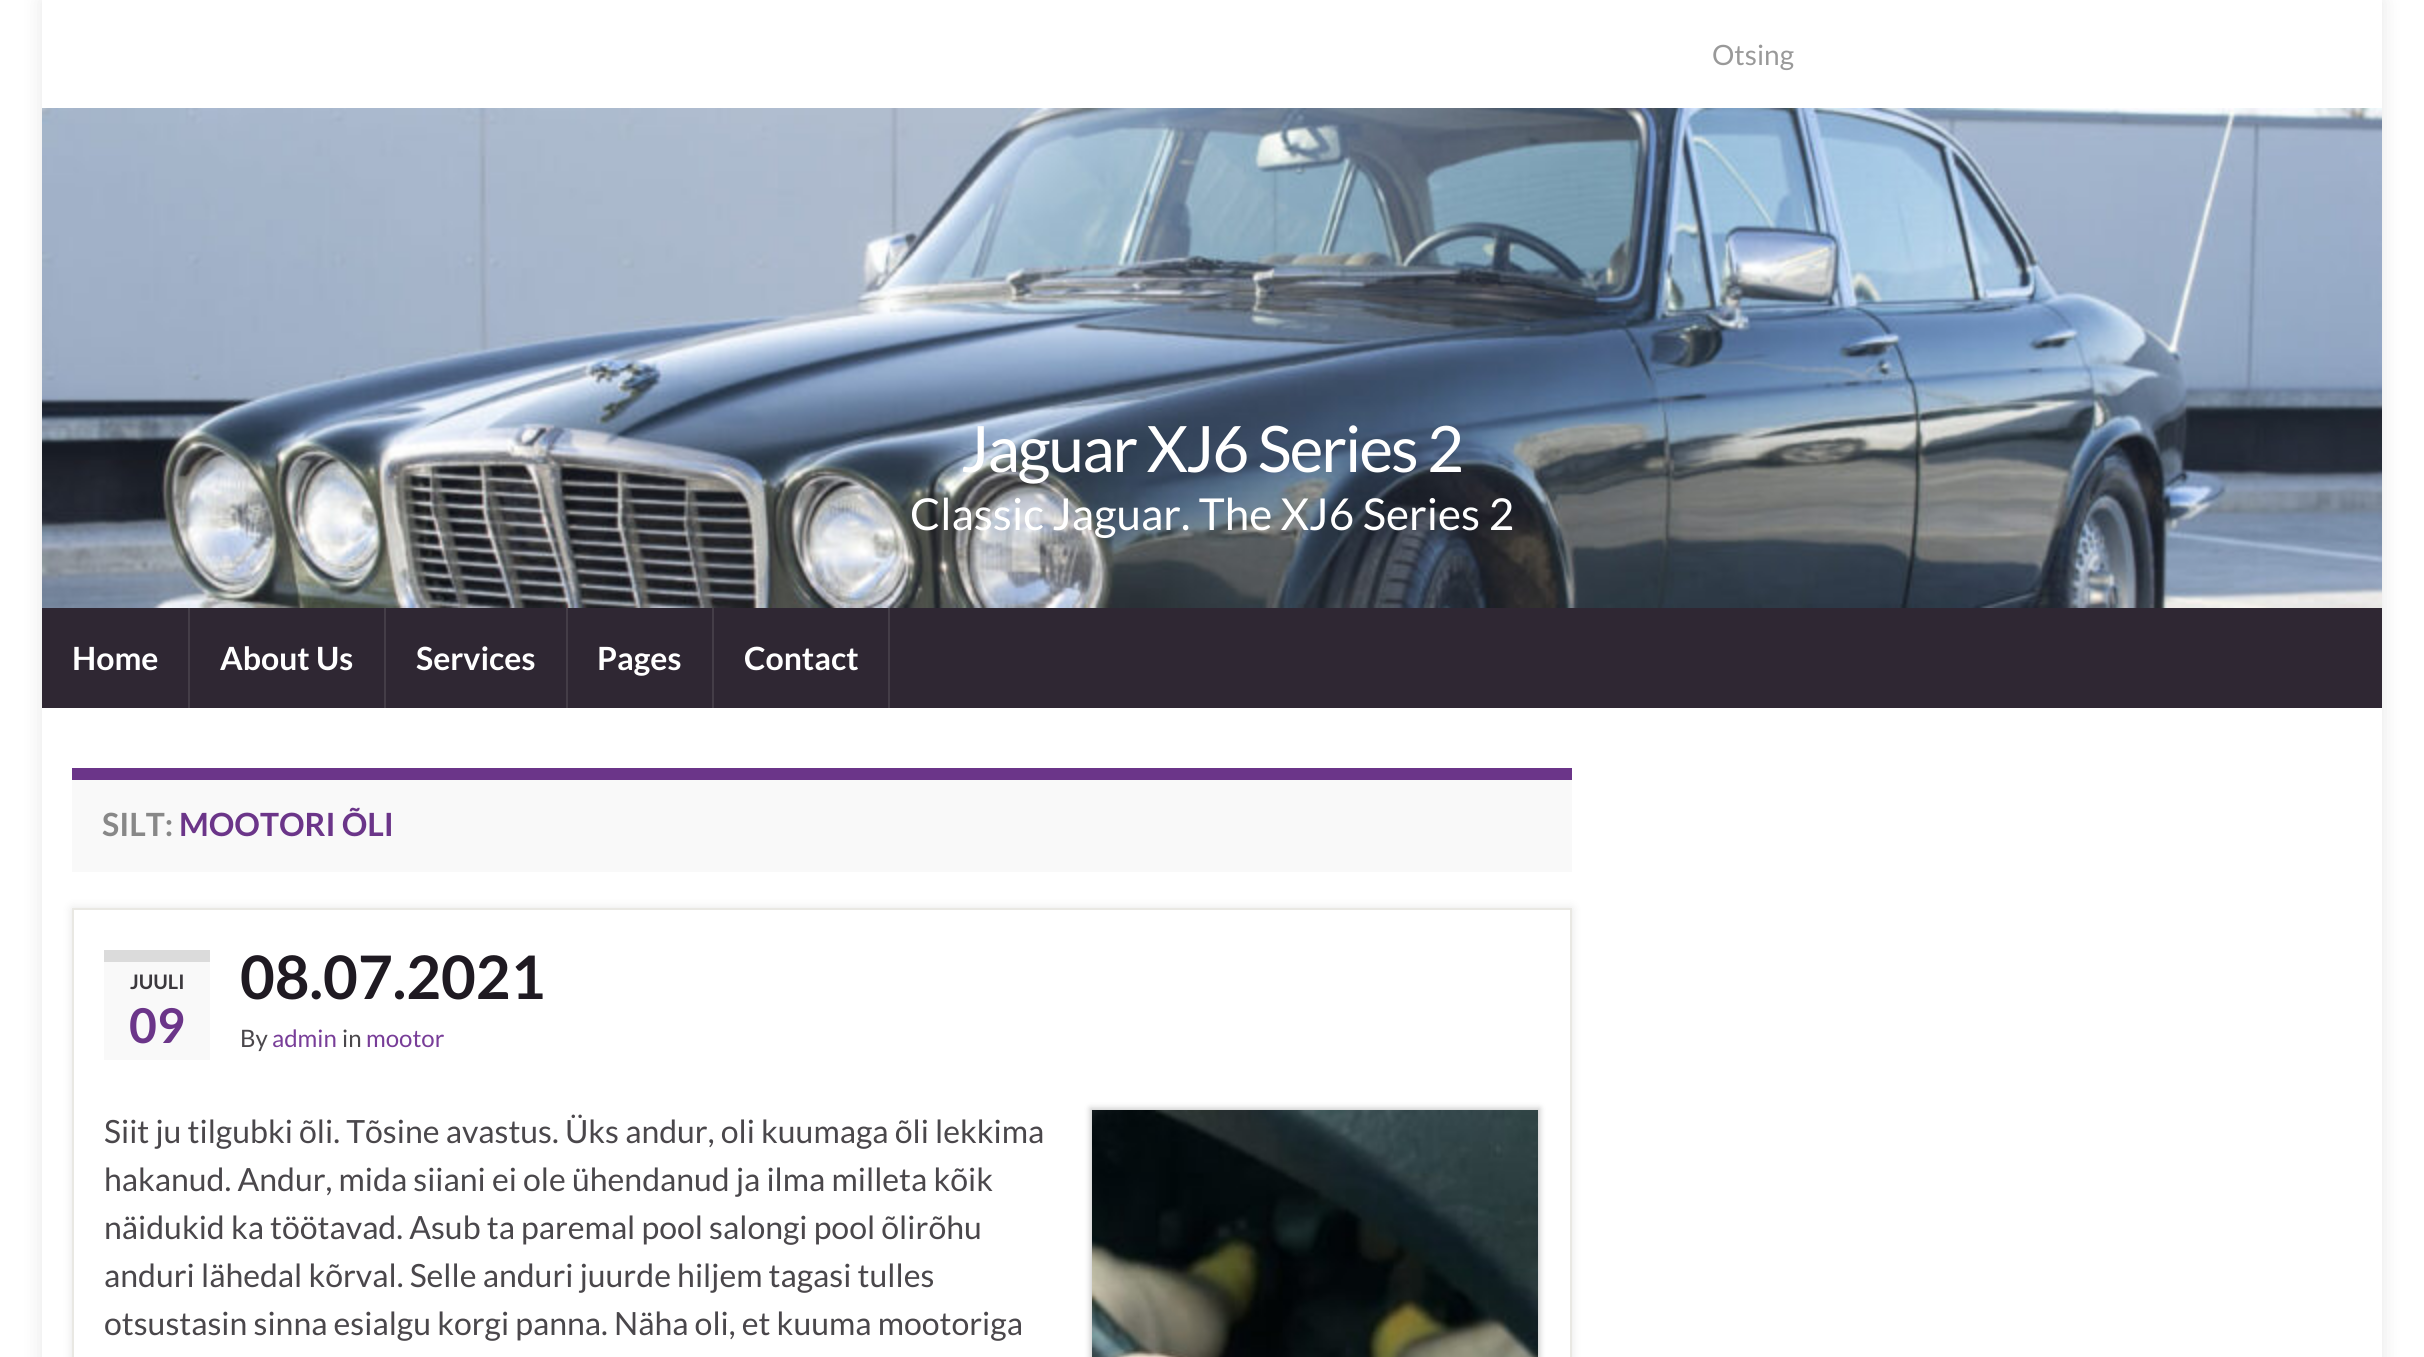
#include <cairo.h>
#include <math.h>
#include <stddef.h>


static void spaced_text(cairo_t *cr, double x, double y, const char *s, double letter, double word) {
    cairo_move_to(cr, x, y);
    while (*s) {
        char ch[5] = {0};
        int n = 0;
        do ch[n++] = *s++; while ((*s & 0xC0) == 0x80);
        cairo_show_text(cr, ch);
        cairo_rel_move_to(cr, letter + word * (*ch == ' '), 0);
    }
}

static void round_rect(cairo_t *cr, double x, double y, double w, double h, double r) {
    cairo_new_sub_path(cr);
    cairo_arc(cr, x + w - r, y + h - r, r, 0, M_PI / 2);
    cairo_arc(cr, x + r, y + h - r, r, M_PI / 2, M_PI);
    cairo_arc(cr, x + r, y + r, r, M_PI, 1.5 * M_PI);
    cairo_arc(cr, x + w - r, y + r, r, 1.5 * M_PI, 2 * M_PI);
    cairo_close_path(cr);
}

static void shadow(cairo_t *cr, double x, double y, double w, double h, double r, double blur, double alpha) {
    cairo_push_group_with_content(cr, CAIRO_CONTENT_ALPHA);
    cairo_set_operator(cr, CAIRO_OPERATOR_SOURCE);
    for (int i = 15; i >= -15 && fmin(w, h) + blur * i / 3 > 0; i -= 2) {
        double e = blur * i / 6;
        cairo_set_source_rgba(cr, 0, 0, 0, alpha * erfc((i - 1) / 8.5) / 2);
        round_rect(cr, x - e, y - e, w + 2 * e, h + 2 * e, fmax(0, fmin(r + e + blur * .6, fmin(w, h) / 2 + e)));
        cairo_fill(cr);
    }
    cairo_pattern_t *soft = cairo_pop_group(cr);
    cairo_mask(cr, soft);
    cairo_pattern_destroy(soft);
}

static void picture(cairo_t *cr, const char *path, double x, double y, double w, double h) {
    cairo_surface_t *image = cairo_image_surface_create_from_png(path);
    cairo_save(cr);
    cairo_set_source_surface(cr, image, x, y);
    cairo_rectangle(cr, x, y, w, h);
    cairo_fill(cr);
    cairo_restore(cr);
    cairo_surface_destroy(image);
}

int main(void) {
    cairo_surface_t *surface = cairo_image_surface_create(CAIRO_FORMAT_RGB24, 2424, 1357);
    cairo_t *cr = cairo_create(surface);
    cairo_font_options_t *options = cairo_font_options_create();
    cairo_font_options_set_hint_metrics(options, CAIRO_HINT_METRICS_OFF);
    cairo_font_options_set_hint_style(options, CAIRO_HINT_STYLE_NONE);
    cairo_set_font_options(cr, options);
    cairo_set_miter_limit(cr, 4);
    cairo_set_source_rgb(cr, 1, 1, 1);
    cairo_paint(cr);
    cairo_save(cr);
    cairo_set_fill_rule(cr, CAIRO_FILL_RULE_EVEN_ODD);
    cairo_new_path(cr);
    cairo_move_to(cr, 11, 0);
    cairo_line_to(cr, 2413, 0);
    cairo_line_to(cr, 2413, 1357);
    cairo_line_to(cr, 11, 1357);
    cairo_close_path(cr);
    cairo_move_to(cr, 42, 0);
    cairo_line_to(cr, 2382, 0);
    cairo_line_to(cr, 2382, 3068);
    cairo_line_to(cr, 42, 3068);
    cairo_close_path(cr);
    cairo_clip(cr);
    cairo_set_source_rgb(cr, 0, 0, 0);
    shadow(cr, 42, 0, 2340, 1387, 0, 10, 0.1);
    cairo_restore(cr);
    cairo_select_font_face(cr, "Lato", CAIRO_FONT_SLANT_NORMAL, CAIRO_FONT_WEIGHT_NORMAL);
    cairo_set_font_size(cr, 28);
    cairo_set_source_rgb(cr, 0.6, 0.6, 0.6);
    cairo_move_to(cr, 1712, 65);
    cairo_show_text(cr, "Otsing");
    picture(cr, "img1.png", 42, 108, 2340, 500);
    cairo_set_source_rgb(cr, 0.184, 0.153, 0.2);
    cairo_rectangle(cr, 42, 608, 2340, 100);
    cairo_fill(cr);
    cairo_set_font_size(cr, 64);
    cairo_set_source_rgb(cr, 1, 1, 1);
    spaced_text(cr, 961, 472, "Jaguar XJ6 Series 2", -2, 0);
    cairo_set_font_size(cr, 44);
    cairo_move_to(cr, 910, 530);
    cairo_show_text(cr, "Classic Jaguar. The XJ6 Series 2");
    cairo_set_source_rgb(cr, 0.267, 0.239, 0.278);
    cairo_rectangle(cr, 188, 608, 2, 100);
    cairo_fill(cr);
    cairo_select_font_face(cr, "Lato", CAIRO_FONT_SLANT_NORMAL, CAIRO_FONT_WEIGHT_BOLD);
    cairo_set_font_size(cr, 32);
    cairo_set_source_rgb(cr, 1, 1, 1);
    cairo_move_to(cr, 72, 670);
    cairo_show_text(cr, "Home");
    cairo_set_source_rgb(cr, 0.267, 0.239, 0.278);
    cairo_rectangle(cr, 384, 608, 2, 100);
    cairo_fill(cr);
    cairo_set_source_rgb(cr, 1, 1, 1);
    cairo_move_to(cr, 220, 670);
    cairo_show_text(cr, "About Us");
    cairo_set_source_rgb(cr, 0.267, 0.239, 0.278);
    cairo_rectangle(cr, 566, 608, 2, 100);
    cairo_fill(cr);
    cairo_set_source_rgb(cr, 1, 1, 1);
    cairo_move_to(cr, 416, 670);
    cairo_show_text(cr, "Services");
    cairo_set_source_rgb(cr, 0.267, 0.239, 0.278);
    cairo_rectangle(cr, 712, 608, 2, 100);
    cairo_fill(cr);
    cairo_set_source_rgb(cr, 1, 1, 1);
    cairo_move_to(cr, 597, 670);
    cairo_show_text(cr, "Pages");
    cairo_set_source_rgb(cr, 0.267, 0.239, 0.278);
    cairo_rectangle(cr, 888, 608, 2, 100);
    cairo_fill(cr);
    cairo_set_source_rgb(cr, 1, 1, 1);
    cairo_move_to(cr, 744, 670);
    cairo_show_text(cr, "Contact");
    cairo_set_source_rgb(cr, 0.976, 0.976, 0.976);
    cairo_rectangle(cr, 72, 780, 1500, 92);
    cairo_fill(cr);
    cairo_set_source_rgb(cr, 0.42, 0.208, 0.537);
    cairo_rectangle(cr, 72, 768, 1500, 12);
    cairo_fill(cr);
    cairo_set_source_rgb(cr, 0.533, 0.533, 0.533);
    cairo_move_to(cr, 102, 836);
    cairo_show_text(cr, "SILT:");
    cairo_set_source_rgb(cr, 0.42, 0.208, 0.537);
    cairo_move_to(cr, 179, 836);
    cairo_show_text(cr, "MOOTORI ÕLI");
    cairo_save(cr);
    cairo_set_fill_rule(cr, CAIRO_FILL_RULE_EVEN_ODD);
    cairo_new_path(cr);
    cairo_move_to(cr, 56, 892);
    cairo_line_to(cr, 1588, 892);
    cairo_line_to(cr, 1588, 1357);
    cairo_line_to(cr, 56, 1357);
    cairo_close_path(cr);
    cairo_move_to(cr, 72, 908);
    cairo_line_to(cr, 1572, 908);
    cairo_line_to(cr, 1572, 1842);
    cairo_line_to(cr, 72, 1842);
    cairo_close_path(cr);
    cairo_clip(cr);
    cairo_set_source_rgb(cr, 0, 0, 0);
    shadow(cr, 72, 908, 1500, 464, 0, 5, 0.1);
    cairo_restore(cr);
    cairo_rectangle(cr, 73, 909, 1498, 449);
    cairo_set_source_rgb(cr, 0.914, 0.91, 0.89);
    cairo_stroke(cr);
    cairo_set_source_rgb(cr, 0.976, 0.976, 0.976);
    cairo_rectangle(cr, 104, 962, 106, 98);
    cairo_fill(cr);
    cairo_set_source_rgb(cr, 0.859, 0.859, 0.859);
    cairo_rectangle(cr, 104, 950, 106, 12);
    cairo_fill(cr);
    cairo_set_font_size(cr, 20);
    cairo_set_source_rgb(cr, 0.231, 0.22, 0.239);
    cairo_move_to(cr, 130, 989);
    cairo_show_text(cr, "JUULI");
    cairo_set_font_size(cr, 48);
    cairo_set_source_rgb(cr, 0.42, 0.208, 0.537);
    cairo_move_to(cr, 129, 1043);
    cairo_show_text(cr, "09");
    cairo_set_font_size(cr, 60);
    cairo_set_source_rgb(cr, 0.122, 0.102, 0.133);
    cairo_move_to(cr, 240, 999);
    cairo_show_text(cr, "08.07.2021");
    cairo_select_font_face(cr, "Lato", CAIRO_FONT_SLANT_NORMAL, CAIRO_FONT_WEIGHT_NORMAL);
    cairo_set_font_size(cr, 24);
    cairo_set_source_rgb(cr, 0.29, 0.278, 0.294);
    cairo_move_to(cr, 240, 1047);
    cairo_show_text(cr, "By");
    cairo_set_source_rgb(cr, 0.471, 0.239, 0.596);
    cairo_move_to(cr, 272, 1047);
    cairo_show_text(cr, "admin");
    cairo_set_source_rgb(cr, 0.29, 0.278, 0.294);
    cairo_move_to(cr, 342, 1047);
    cairo_show_text(cr, "in");
    cairo_set_source_rgb(cr, 0.471, 0.239, 0.596);
    cairo_move_to(cr, 366, 1047);
    cairo_show_text(cr, "mootor");
    cairo_set_font_size(cr, 32);
    cairo_set_source_rgb(cr, 0.29, 0.278, 0.294);
    cairo_move_to(cr, 104, 1143);
    cairo_show_text(cr, "Siit ju tilgubki õli. Tõsine avastus. Üks andur, oli kuumaga õli lekkima");
    cairo_move_to(cr, 104, 1191);
    cairo_show_text(cr, "hakanud. Andur, mida siiani ei ole ühendanud ja ilma milleta kõik");
    cairo_move_to(cr, 104, 1239);
    cairo_show_text(cr, "näidukid ka töötavad. Asub ta paremal pool salongi pool õlirõhu");
    cairo_move_to(cr, 104, 1287);
    cairo_show_text(cr, "anduri lähedal kõrval. Selle anduri juurde hiljem tagasi tulles");
    cairo_move_to(cr, 104, 1335);
    cairo_show_text(cr, "otsustasin sinna esialgu korgi panna. Näha oli, et kuuma mootoriga");
    cairo_set_source_rgb(cr, 0, 0, 0);
    shadow(cr, 1090, 1108, 450, 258, 0, 3, 0.2);
    picture(cr, "img2.png", 1092, 1110, 446, 247);
    cairo_surface_write_to_png(surface, "page.png");
    cairo_font_options_destroy(options);
    cairo_destroy(cr);
    cairo_surface_destroy(surface);
    return 0;
}
